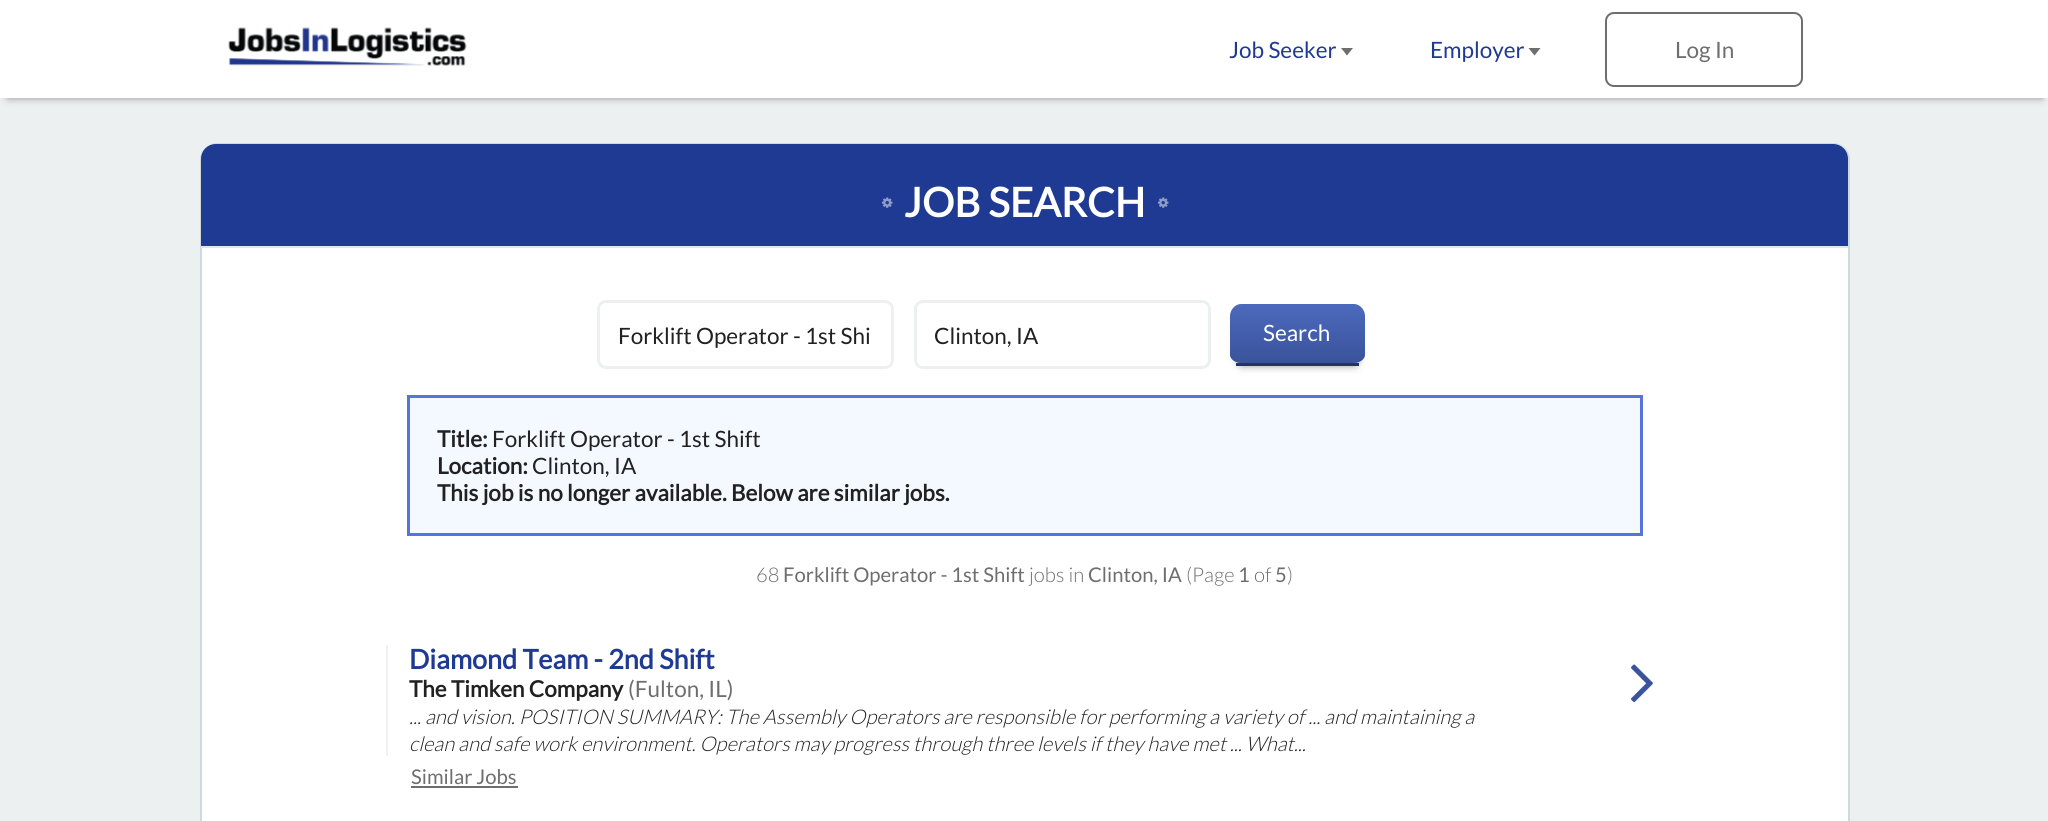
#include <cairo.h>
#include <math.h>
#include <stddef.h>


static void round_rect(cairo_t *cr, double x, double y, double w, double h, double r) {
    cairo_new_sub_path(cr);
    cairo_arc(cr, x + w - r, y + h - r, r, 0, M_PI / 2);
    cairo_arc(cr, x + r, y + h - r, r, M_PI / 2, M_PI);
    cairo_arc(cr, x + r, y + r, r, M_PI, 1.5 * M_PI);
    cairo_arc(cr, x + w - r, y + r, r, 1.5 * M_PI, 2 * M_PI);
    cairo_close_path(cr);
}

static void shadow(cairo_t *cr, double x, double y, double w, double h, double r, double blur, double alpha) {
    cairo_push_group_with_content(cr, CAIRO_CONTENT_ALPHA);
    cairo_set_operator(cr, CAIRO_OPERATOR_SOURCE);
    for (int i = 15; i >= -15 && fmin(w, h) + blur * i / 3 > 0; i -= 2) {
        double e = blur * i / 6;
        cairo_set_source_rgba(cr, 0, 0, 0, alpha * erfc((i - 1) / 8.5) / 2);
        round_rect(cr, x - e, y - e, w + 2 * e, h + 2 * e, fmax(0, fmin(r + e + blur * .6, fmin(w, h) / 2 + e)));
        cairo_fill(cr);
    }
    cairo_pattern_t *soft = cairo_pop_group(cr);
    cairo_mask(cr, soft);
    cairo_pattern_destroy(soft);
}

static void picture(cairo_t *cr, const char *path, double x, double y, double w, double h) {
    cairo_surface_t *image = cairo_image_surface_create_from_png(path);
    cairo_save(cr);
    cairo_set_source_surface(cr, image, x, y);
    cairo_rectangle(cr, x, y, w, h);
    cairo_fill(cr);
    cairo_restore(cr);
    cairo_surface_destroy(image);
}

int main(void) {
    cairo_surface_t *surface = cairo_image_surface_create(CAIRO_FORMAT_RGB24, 2048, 821);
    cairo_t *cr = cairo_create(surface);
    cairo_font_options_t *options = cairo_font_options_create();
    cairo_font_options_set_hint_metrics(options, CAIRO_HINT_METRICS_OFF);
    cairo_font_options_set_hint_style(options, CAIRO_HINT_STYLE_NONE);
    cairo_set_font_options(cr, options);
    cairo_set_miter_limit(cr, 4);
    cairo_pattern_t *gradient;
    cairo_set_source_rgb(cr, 0.925, 0.941, 0.945);
    cairo_paint(cr);
    cairo_set_source_rgb(cr, 0, 0, 0);
    shadow(cr, 8, 15, 2034, 83, 0, 4, 0.4);
    cairo_set_source_rgb(cr, 1, 1, 1);
    cairo_rectangle(cr, 0, 0, 2048, 98);
    cairo_fill(cr);
    picture(cr, "img1.png", 228, 27, 239, 39);
    cairo_select_font_face(cr, "Lato", CAIRO_FONT_SLANT_NORMAL, CAIRO_FONT_WEIGHT_NORMAL);
    cairo_set_font_size(cr, 22.5);
    cairo_set_source_rgb(cr, 0.122, 0.227, 0.576);
    cairo_move_to(cr, 1229, 58);
    cairo_show_text(cr, "Job Seeker");
    cairo_set_source_rgb(cr, 0.431, 0.431, 0.431);
    cairo_new_path(cr);
    cairo_move_to(cr, 1341, 48);
    cairo_line_to(cr, 1353, 48);
    cairo_line_to(cr, 1347, 55.5);
    cairo_close_path(cr);
    cairo_fill(cr);
    cairo_set_source_rgb(cr, 0.122, 0.227, 0.576);
    cairo_move_to(cr, 1430, 58);
    cairo_show_text(cr, "Employer");
    cairo_set_source_rgb(cr, 0.431, 0.431, 0.431);
    cairo_new_path(cr);
    cairo_move_to(cr, 1528.5, 48);
    cairo_line_to(cr, 1540.5, 48);
    cairo_line_to(cr, 1534.5, 55.5);
    cairo_close_path(cr);
    cairo_fill(cr);
    round_rect(cr, 1606, 13, 196, 73, 8);
    cairo_stroke(cr);
    cairo_move_to(cr, 1675, 58);
    cairo_show_text(cr, "Log In");
    cairo_set_source_rgb(cr, 1, 1, 1);
    round_rect(cr, 201, 144, 1648, 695, 16);
    cairo_fill_preserve(cr);
    cairo_set_source_rgb(cr, 0.812, 0.851, 0.859);
    cairo_stroke(cr);
    cairo_set_source_rgb(cr, 0.122, 0.227, 0.576);
    cairo_new_path(cr);
    cairo_move_to(cr, 216, 144);
    cairo_line_to(cr, 1833, 144);
    cairo_curve_to(cr, 1841.5, 144, 1848, 150.5, 1848, 159);
    cairo_line_to(cr, 1848, 248);
    cairo_line_to(cr, 201, 248);
    cairo_line_to(cr, 201, 159);
    cairo_curve_to(cr, 201, 150.5, 207.5, 144, 216, 144);
    cairo_close_path(cr);
    cairo_fill(cr);
    cairo_set_source_rgb(cr, 0.878, 0.906, 0.91);
    cairo_rectangle(cr, 201, 246, 1647, 2);
    cairo_fill(cr);
    picture(cr, "img2.png", 882, 197, 11, 11);
    cairo_select_font_face(cr, "Lato", CAIRO_FONT_SLANT_NORMAL, CAIRO_FONT_WEIGHT_BOLD);
    cairo_set_font_size(cr, 40.5);
    cairo_set_source_rgb(cr, 1, 1, 1);
    cairo_move_to(cr, 904, 217);
    cairo_show_text(cr, "JOB SEARCH");
    picture(cr, "img2.png", 1158, 197, 11, 11);
    round_rect(cr, 598.5, 301.5, 294, 66, 7.5);
    cairo_set_source_rgb(cr, 0.925, 0.941, 0.945);
    cairo_set_line_width(cr, 3);
    cairo_stroke(cr);
    cairo_select_font_face(cr, "Lato", CAIRO_FONT_SLANT_NORMAL, CAIRO_FONT_WEIGHT_NORMAL);
    cairo_set_font_size(cr, 22.5);
    cairo_set_source_rgb(cr, 0.129, 0.129, 0.129);
    cairo_move_to(cr, 618, 344);
    cairo_show_text(cr, "Forklift Operator - 1st Shi");
    round_rect(cr, 915.5, 301.5, 294, 66, 7.5);
    cairo_set_source_rgb(cr, 0.925, 0.941, 0.945);
    cairo_stroke(cr);
    cairo_set_source_rgb(cr, 0.129, 0.129, 0.129);
    cairo_move_to(cr, 934, 344);
    cairo_show_text(cr, "Clinton, IA");
    cairo_set_source_rgb(cr, 0, 0, 0);
    shadow(cr, 1238, 320, 120, 46, 4, 4, 0.4);
    gradient = cairo_pattern_create_linear(1298, 305, 1298, 363);
    cairo_pattern_add_color_stop_rgba(gradient, 0, 0.298, 0.412, 0.737, 1);
    cairo_pattern_add_color_stop_rgba(gradient, 1, 0.227, 0.325, 0.608, 1);
    cairo_set_source(cr, gradient);
    cairo_pattern_destroy(gradient);
    cairo_new_path(cr);
    cairo_move_to(cr, 1241, 304);
    cairo_line_to(cr, 1354, 304);
    cairo_curve_to(cr, 1360, 304, 1365, 310, 1365, 316);
    cairo_line_to(cr, 1365, 355);
    cairo_curve_to(cr, 1365, 359, 1360, 363, 1354, 363);
    cairo_line_to(cr, 1241, 363);
    cairo_curve_to(cr, 1235, 363, 1230, 359, 1230, 355);
    cairo_line_to(cr, 1230, 316);
    cairo_curve_to(cr, 1230, 310, 1235, 304, 1241, 304);
    cairo_close_path(cr);
    cairo_fill(cr);
    cairo_set_source_rgb(cr, 0.145, 0.208, 0.388);
    cairo_rectangle(cr, 1236, 363, 123, 3);
    cairo_fill(cr);
    cairo_set_source_rgb(cr, 1, 1, 1);
    cairo_move_to(cr, 1263, 341);
    cairo_show_text(cr, "Search");
    cairo_set_source_rgb(cr, 0.957, 0.969, 1);
    cairo_rectangle(cr, 408.5, 396.5, 1233, 138);
    cairo_fill_preserve(cr);
    cairo_set_source_rgb(cr, 0.337, 0.459, 0.859);
    cairo_stroke(cr);
    cairo_select_font_face(cr, "Lato", CAIRO_FONT_SLANT_NORMAL, CAIRO_FONT_WEIGHT_BOLD);
    cairo_set_source_rgb(cr, 0.129, 0.129, 0.129);
    cairo_move_to(cr, 437, 447);
    cairo_show_text(cr, "Title:");
    cairo_select_font_face(cr, "Lato", CAIRO_FONT_SLANT_NORMAL, CAIRO_FONT_WEIGHT_NORMAL);
    cairo_move_to(cr, 492, 447);
    cairo_show_text(cr, "Forklift Operator - 1st Shift");
    cairo_select_font_face(cr, "Lato", CAIRO_FONT_SLANT_NORMAL, CAIRO_FONT_WEIGHT_BOLD);
    cairo_move_to(cr, 437, 474);
    cairo_show_text(cr, "Location:");
    cairo_select_font_face(cr, "Lato", CAIRO_FONT_SLANT_NORMAL, CAIRO_FONT_WEIGHT_NORMAL);
    cairo_move_to(cr, 532, 474);
    cairo_show_text(cr, "Clinton, IA");
    cairo_select_font_face(cr, "Lato", CAIRO_FONT_SLANT_NORMAL, CAIRO_FONT_WEIGHT_BOLD);
    cairo_move_to(cr, 437, 501);
    cairo_show_text(cr, "This job is no longer available. Below are similar jobs.");
    cairo_select_font_face(cr, "Lato Light", CAIRO_FONT_SLANT_NORMAL, CAIRO_FONT_WEIGHT_NORMAL);
    cairo_set_font_size(cr, 20.25);
    cairo_set_source_rgb(cr, 0.431, 0.431, 0.431);
    cairo_move_to(cr, 756, 582);
    cairo_show_text(cr, "68");
    cairo_select_font_face(cr, "Lato", CAIRO_FONT_SLANT_NORMAL, CAIRO_FONT_WEIGHT_NORMAL);
    cairo_move_to(cr, 783, 582);
    cairo_show_text(cr, "Forklift Operator - 1st Shift");
    cairo_select_font_face(cr, "Lato Light", CAIRO_FONT_SLANT_NORMAL, CAIRO_FONT_WEIGHT_NORMAL);
    cairo_move_to(cr, 1029, 582);
    cairo_show_text(cr, "jobs in");
    cairo_select_font_face(cr, "Lato", CAIRO_FONT_SLANT_NORMAL, CAIRO_FONT_WEIGHT_NORMAL);
    cairo_move_to(cr, 1088, 582);
    cairo_show_text(cr, "Clinton, IA");
    cairo_select_font_face(cr, "Lato Light", CAIRO_FONT_SLANT_NORMAL, CAIRO_FONT_WEIGHT_NORMAL);
    cairo_move_to(cr, 1186, 582);
    cairo_show_text(cr, "(Page");
    cairo_select_font_face(cr, "Lato", CAIRO_FONT_SLANT_NORMAL, CAIRO_FONT_WEIGHT_NORMAL);
    cairo_move_to(cr, 1238, 582);
    cairo_show_text(cr, "1");
    cairo_select_font_face(cr, "Lato Light", CAIRO_FONT_SLANT_NORMAL, CAIRO_FONT_WEIGHT_NORMAL);
    cairo_move_to(cr, 1254, 582);
    cairo_show_text(cr, "of");
    cairo_select_font_face(cr, "Lato", CAIRO_FONT_SLANT_NORMAL, CAIRO_FONT_WEIGHT_NORMAL);
    cairo_move_to(cr, 1275, 582);
    cairo_show_text(cr, "5");
    cairo_select_font_face(cr, "Lato Light", CAIRO_FONT_SLANT_NORMAL, CAIRO_FONT_WEIGHT_NORMAL);
    cairo_move_to(cr, 1287, 582);
    cairo_show_text(cr, ")");
    cairo_set_source_rgb(cr, 0.933, 0.945, 0.984);
    cairo_rectangle(cr, 386, 645, 2, 111);
    cairo_fill(cr);
    cairo_select_font_face(cr, "Lato", CAIRO_FONT_SLANT_NORMAL, CAIRO_FONT_WEIGHT_BOLD);
    cairo_set_font_size(cr, 27);
    cairo_set_source_rgb(cr, 0.122, 0.227, 0.576);
    cairo_move_to(cr, 409, 669);
    cairo_show_text(cr, "Diamond Team - 2nd Shift");
    cairo_set_font_size(cr, 22.5);
    cairo_set_source_rgb(cr, 0.129, 0.129, 0.129);
    cairo_move_to(cr, 409, 697);
    cairo_show_text(cr, "The Timken Company");
    cairo_select_font_face(cr, "Lato", CAIRO_FONT_SLANT_NORMAL, CAIRO_FONT_WEIGHT_NORMAL);
    cairo_set_source_rgb(cr, 0.431, 0.431, 0.431);
    cairo_move_to(cr, 628, 697);
    cairo_show_text(cr, "(Fulton, IL)");
    cairo_select_font_face(cr, "Lato Light", CAIRO_FONT_SLANT_ITALIC, CAIRO_FONT_WEIGHT_NORMAL);
    cairo_set_font_size(cr, 20.25);
    cairo_set_source_rgb(cr, 0.129, 0.129, 0.129);
    cairo_move_to(cr, 409, 724);
    cairo_show_text(cr, "... and vision. POSITION SUMMARY: The Assembly Operators are responsible for performing a variety of ... and maintaining a");
    cairo_move_to(cr, 409, 751);
    cairo_show_text(cr, "clean and safe work environment. Operators may progress through three levels if they have met ... What...");
    picture(cr, "img3.png", 1631, 664, 22, 39);
    cairo_select_font_face(cr, "Lato", CAIRO_FONT_SLANT_NORMAL, CAIRO_FONT_WEIGHT_NORMAL);
    cairo_set_source_rgb(cr, 0.431, 0.431, 0.431);
    cairo_move_to(cr, 411, 784);
    cairo_show_text(cr, "Similar Jobs");
    cairo_rectangle(cr, 411, 786, 107, 2);
    cairo_fill(cr);
    cairo_surface_write_to_png(surface, "page.png");
    cairo_font_options_destroy(options);
    cairo_destroy(cr);
    cairo_surface_destroy(surface);
    return 0;
}
